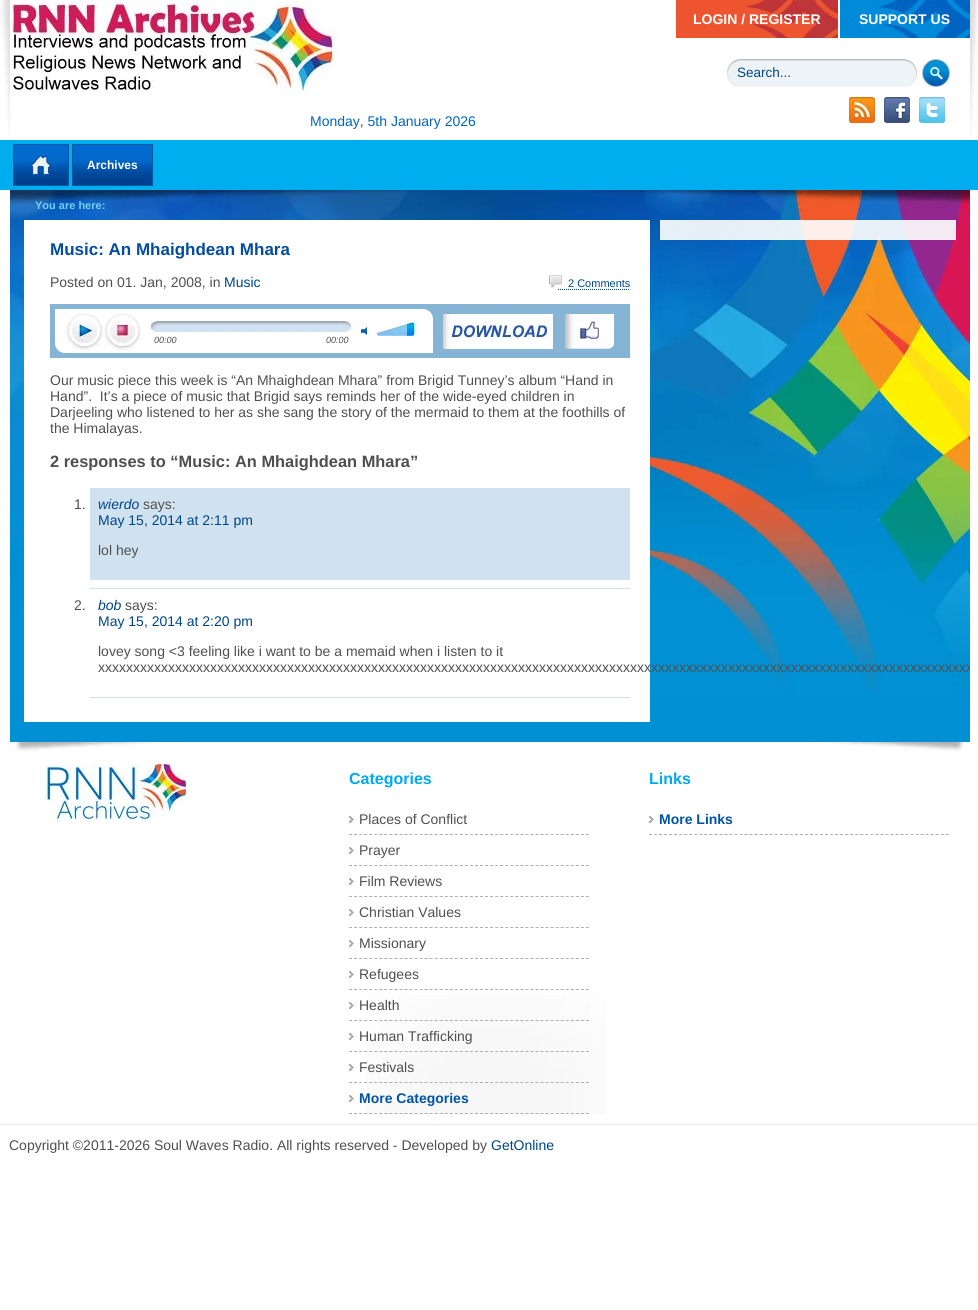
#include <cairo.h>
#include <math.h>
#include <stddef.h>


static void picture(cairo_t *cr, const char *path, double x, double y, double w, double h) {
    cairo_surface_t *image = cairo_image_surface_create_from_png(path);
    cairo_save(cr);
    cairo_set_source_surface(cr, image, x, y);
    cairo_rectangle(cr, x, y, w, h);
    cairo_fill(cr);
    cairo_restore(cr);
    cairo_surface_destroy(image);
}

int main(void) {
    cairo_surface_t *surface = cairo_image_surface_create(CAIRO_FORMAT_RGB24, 978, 1310);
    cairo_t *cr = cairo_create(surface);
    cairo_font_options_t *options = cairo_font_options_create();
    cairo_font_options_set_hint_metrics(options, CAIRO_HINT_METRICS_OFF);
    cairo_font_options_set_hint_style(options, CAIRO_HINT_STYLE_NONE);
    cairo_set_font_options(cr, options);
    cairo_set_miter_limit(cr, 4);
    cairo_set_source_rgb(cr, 1, 1, 1);
    cairo_paint(cr);
    cairo_set_source_rgb(cr, 0, 0.682, 0.941);
    cairo_rectangle(cr, 0, 140, 978, 50);
    cairo_fill(cr);
    picture(cr, "img1.png", 0, 0, 10, 140);
    picture(cr, "img2.png", 10, 0, 328, 96);
    picture(cr, "img3.png", 676, 0, 162, 38);
    cairo_select_font_face(cr, "Liberation Sans", CAIRO_FONT_SLANT_NORMAL, CAIRO_FONT_WEIGHT_BOLD);
    cairo_set_font_size(cr, 14);
    cairo_set_source_rgb(cr, 1, 1, 1);
    cairo_move_to(cr, 693, 24);
    cairo_show_text(cr, "LOGIN / REGISTER");
    picture(cr, "img4.png", 840, 0, 130, 38);
    cairo_move_to(cr, 859, 24);
    cairo_show_text(cr, "SUPPORT US");
    picture(cr, "img5.png", 727, 59, 190, 28);
    cairo_select_font_face(cr, "Liberation Sans", CAIRO_FONT_SLANT_NORMAL, CAIRO_FONT_WEIGHT_NORMAL);
    cairo_set_font_size(cr, 13.5);
    cairo_set_source_rgb(cr, 0, 0.275, 0.529);
    cairo_move_to(cr, 737, 77);
    cairo_show_text(cr, "Search...");
    picture(cr, "img6.png", 922, 59, 28, 28);
    cairo_set_font_size(cr, 14);
    cairo_set_source_rgb(cr, 0, 0.396, 0.741);
    cairo_move_to(cr, 310, 126);
    cairo_show_text(cr, "Monday, 5th January 2026");
    picture(cr, "img7.png", 849, 97, 26, 26);
    picture(cr, "img8.png", 884, 97, 26, 26);
    picture(cr, "img9.png", 919, 97, 26, 26);
    picture(cr, "img10.png", 14, 145, 54, 40);
    cairo_rectangle(cr, 13.5, 144.5, 55, 41);
    cairo_set_source_rgb(cr, 0, 0.357, 0.635);
    cairo_set_line_width(cr, 1);
    cairo_stroke(cr);
    picture(cr, "img11.png", 29, 154, 23, 22);
    cairo_rectangle(cr, 72.5, 144.5, 80, 41);
    cairo_stroke(cr);
    picture(cr, "img12.png", 73, 145, 79, 40);
    cairo_select_font_face(cr, "Liberation Sans", CAIRO_FONT_SLANT_NORMAL, CAIRO_FONT_WEIGHT_BOLD);
    cairo_set_font_size(cr, 12);
    cairo_set_source_rgb(cr, 1, 1, 1);
    cairo_move_to(cr, 87, 169);
    cairo_show_text(cr, "Archives");
    cairo_set_source_rgb(cr, 0, 0.565, 0.827);
    cairo_rectangle(cr, 10, 696, 960, 46);
    cairo_fill(cr);
    picture(cr, "img13.png", 10, 190, 960, 506);
    cairo_set_font_size(cr, 11);
    cairo_set_source_rgb(cr, 0.463, 0.808, 0.937);
    cairo_move_to(cr, 35, 209);
    cairo_show_text(cr, "You are here:");
    cairo_set_source_rgba(cr, 1, 1, 1, 0.9);
    cairo_rectangle(cr, 660, 220, 296, 20);
    cairo_fill(cr);
    cairo_set_source_rgb(cr, 1, 1, 1);
    cairo_rectangle(cr, 24, 220, 626, 502);
    cairo_fill(cr);
    cairo_set_font_size(cr, 17);
    cairo_set_source_rgb(cr, 0.012, 0.302, 0.631);
    cairo_move_to(cr, 50, 255);
    cairo_show_text(cr, "Music: An Mhaighdean Mhara");
    cairo_select_font_face(cr, "Liberation Sans", CAIRO_FONT_SLANT_NORMAL, CAIRO_FONT_WEIGHT_NORMAL);
    cairo_set_font_size(cr, 14);
    cairo_set_source_rgb(cr, 0.31, 0.31, 0.31);
    cairo_move_to(cr, 50, 287);
    cairo_show_text(cr, "Posted on 01. Jan, 2008, in");
    cairo_set_source_rgb(cr, 0, 0.275, 0.529);
    cairo_move_to(cr, 224, 287);
    cairo_show_text(cr, "Music");
    picture(cr, "img14.png", 549, 275, 13, 13);
    cairo_set_font_size(cr, 11);
    cairo_move_to(cr, 568, 287);
    cairo_show_text(cr, "2 Comments");
    cairo_new_path(cr);
    cairo_move_to(cr, 558, 289.5);
    cairo_line_to(cr, 630, 289.5);
    cairo_set_dash(cr, (double[]){1, 1}, 2, 0);
    cairo_stroke(cr);
    cairo_set_source_rgb(cr, 0.525, 0.706, 0.835);
    cairo_rectangle(cr, 50, 304, 580, 54);
    cairo_fill(cr);
    cairo_set_source_rgb(cr, 1, 1, 1);
    cairo_new_path(cr);
    cairo_move_to(cr, 55, 309);
    cairo_line_to(cr, 423, 309);
    cairo_curve_to(cr, 428.5, 309, 433, 313.5, 433, 319);
    cairo_line_to(cr, 433, 353);
    cairo_line_to(cr, 65, 353);
    cairo_curve_to(cr, 59.5, 353, 55, 348.5, 55, 343);
    cairo_close_path(cr);
    cairo_fill(cr);
    picture(cr, "img15.png", 65, 313, 38, 37);
    picture(cr, "img16.png", 103, 313, 38, 37);
    picture(cr, "img17.png", 361, 327, 6, 8);
    picture(cr, "img18.png", 377, 322, 38, 14);
    cairo_set_source_rgba(cr, 1, 1, 1, 0.5);
    cairo_rectangle(cr, 377, 323, 30, 13);
    cairo_fill(cr);
    picture(cr, "img19.png", 151, 321, 200, 11);
    cairo_select_font_face(cr, "Liberation Sans", CAIRO_FONT_SLANT_ITALIC, CAIRO_FONT_WEIGHT_NORMAL);
    cairo_set_font_size(cr, 9);
    cairo_set_source_rgb(cr, 0.31, 0.31, 0.31);
    cairo_move_to(cr, 154, 343);
    cairo_show_text(cr, "00:00");
    cairo_move_to(cr, 326, 343);
    cairo_show_text(cr, "00:00");
    picture(cr, "img20.png", 443, 314, 110, 35);
    picture(cr, "img21.png", 565, 314, 49, 35);
    cairo_select_font_face(cr, "Liberation Sans", CAIRO_FONT_SLANT_NORMAL, CAIRO_FONT_WEIGHT_NORMAL);
    cairo_set_font_size(cr, 14);
    cairo_move_to(cr, 50, 385);
    cairo_show_text(cr, "Our music piece this week is “An Mhaighdean Mhara” from Brigid Tunney’s album “Hand in");
    cairo_move_to(cr, 50, 401);
    cairo_show_text(cr, "Hand”.  It’s a piece of music that Brigid says reminds her of the wide-eyed children in");
    cairo_move_to(cr, 50, 417);
    cairo_show_text(cr, "Darjeeling who listened to her as she sang the story of the mermaid to them at the foothills of");
    cairo_move_to(cr, 50, 433);
    cairo_show_text(cr, "the Himalayas.");
    cairo_select_font_face(cr, "Liberation Sans", CAIRO_FONT_SLANT_NORMAL, CAIRO_FONT_WEIGHT_BOLD);
    cairo_set_font_size(cr, 16.4);
    cairo_move_to(cr, 50, 467);
    cairo_show_text(cr, "2 responses to “Music: An Mhaighdean Mhara”");
    cairo_set_source_rgb(cr, 0.816, 0.886, 0.941);
    cairo_rectangle(cr, 90, 488, 540, 92);
    cairo_fill(cr);
    cairo_select_font_face(cr, "Liberation Sans", CAIRO_FONT_SLANT_NORMAL, CAIRO_FONT_WEIGHT_NORMAL);
    cairo_set_font_size(cr, 14);
    cairo_set_source_rgb(cr, 0.31, 0.31, 0.31);
    cairo_move_to(cr, 74, 509);
    cairo_show_text(cr, "1.");
    cairo_select_font_face(cr, "Liberation Sans", CAIRO_FONT_SLANT_ITALIC, CAIRO_FONT_WEIGHT_NORMAL);
    cairo_set_source_rgb(cr, 0, 0.275, 0.529);
    cairo_move_to(cr, 98, 509);
    cairo_show_text(cr, "wierdo");
    cairo_select_font_face(cr, "Liberation Sans", CAIRO_FONT_SLANT_NORMAL, CAIRO_FONT_WEIGHT_NORMAL);
    cairo_set_source_rgb(cr, 0.31, 0.31, 0.31);
    cairo_move_to(cr, 143, 509);
    cairo_show_text(cr, "says:");
    cairo_set_source_rgb(cr, 0, 0.275, 0.529);
    cairo_move_to(cr, 98, 525);
    cairo_show_text(cr, "May 15, 2014 at 2:11 pm");
    cairo_set_source_rgb(cr, 0.31, 0.31, 0.31);
    cairo_move_to(cr, 98, 555);
    cairo_show_text(cr, "lol hey");
    cairo_set_source_rgb(cr, 0.816, 0.886, 0.941);
    cairo_rectangle(cr, 90, 588, 540, 1);
    cairo_fill(cr);
    cairo_rectangle(cr, 90, 697, 540, 1);
    cairo_fill(cr);
    cairo_set_source_rgb(cr, 0.31, 0.31, 0.31);
    cairo_move_to(cr, 74, 610);
    cairo_show_text(cr, "2.");
    cairo_select_font_face(cr, "Liberation Sans", CAIRO_FONT_SLANT_ITALIC, CAIRO_FONT_WEIGHT_NORMAL);
    cairo_set_source_rgb(cr, 0, 0.275, 0.529);
    cairo_move_to(cr, 98, 610);
    cairo_show_text(cr, "bob");
    cairo_select_font_face(cr, "Liberation Sans", CAIRO_FONT_SLANT_NORMAL, CAIRO_FONT_WEIGHT_NORMAL);
    cairo_set_source_rgb(cr, 0.31, 0.31, 0.31);
    cairo_move_to(cr, 125, 610);
    cairo_show_text(cr, "says:");
    cairo_set_source_rgb(cr, 0, 0.275, 0.529);
    cairo_move_to(cr, 98, 626);
    cairo_show_text(cr, "May 15, 2014 at 2:20 pm");
    cairo_set_source_rgb(cr, 0.31, 0.31, 0.31);
    cairo_move_to(cr, 98, 656);
    cairo_show_text(cr, "lovey song <3 feeling like i want to be a memaid when i listen to it");
    cairo_save(cr);
    cairo_rectangle(cr, 10, 190, 960, 552);
    cairo_clip(cr);
    cairo_move_to(cr, 98, 672);
    cairo_show_text(cr, "xxxxxxxxxxxxxxxxxxxxxxxxxxxxxxxxxxxxxxxxxxxxxxxxxxxxxxxxxxxxxxxxxxxxxxxxxxxxxxxxxxxxxxxxxxxxxxxxxxxxxxxxxxxxxxxxxxxxxxxxxxxxx");
    cairo_restore(cr);
    picture(cr, "img22.png", 15, 742, 950, 10);
    picture(cr, "img23.png", 970, 0, 8, 140);
    cairo_set_source_rgb(cr, 0.91, 0.91, 0.91);
    cairo_rectangle(cr, 0, 1124, 978, 1);
    cairo_fill(cr);
    picture(cr, "img24.png", 366, 995, 240, 119);
    picture(cr, "img25.png", 45, 764, 141, 57);
    cairo_select_font_face(cr, "Liberation Sans", CAIRO_FONT_SLANT_NORMAL, CAIRO_FONT_WEIGHT_BOLD);
    cairo_set_font_size(cr, 16);
    cairo_set_source_rgb(cr, 0, 0.663, 0.945);
    cairo_move_to(cr, 349, 784);
    cairo_show_text(cr, "Categories");
    picture(cr, "img26.png", 349, 816, 5, 7);
    cairo_new_path(cr);
    cairo_move_to(cr, 349, 834.5);
    cairo_line_to(cr, 589, 834.5);
    cairo_set_source_rgb(cr, 0.686, 0.686, 0.686);
    cairo_set_dash(cr, (double[]){3, 2.04}, 2, 0);
    cairo_stroke(cr);
    cairo_select_font_face(cr, "Liberation Sans", CAIRO_FONT_SLANT_NORMAL, CAIRO_FONT_WEIGHT_NORMAL);
    cairo_set_font_size(cr, 14);
    cairo_set_source_rgb(cr, 0.31, 0.31, 0.31);
    cairo_move_to(cr, 359, 824);
    cairo_show_text(cr, "Places of Conflict");
    picture(cr, "img26.png", 349, 847, 5, 7);
    cairo_new_path(cr);
    cairo_move_to(cr, 349, 865.5);
    cairo_line_to(cr, 589, 865.5);
    cairo_set_source_rgb(cr, 0.686, 0.686, 0.686);
    cairo_stroke(cr);
    cairo_set_source_rgb(cr, 0.31, 0.31, 0.31);
    cairo_move_to(cr, 359, 855);
    cairo_show_text(cr, "Prayer");
    picture(cr, "img26.png", 349, 878, 5, 7);
    cairo_new_path(cr);
    cairo_move_to(cr, 349, 896.5);
    cairo_line_to(cr, 589, 896.5);
    cairo_set_source_rgb(cr, 0.686, 0.686, 0.686);
    cairo_stroke(cr);
    cairo_set_source_rgb(cr, 0.31, 0.31, 0.31);
    cairo_move_to(cr, 359, 886);
    cairo_show_text(cr, "Film Reviews");
    picture(cr, "img26.png", 349, 909, 5, 7);
    cairo_new_path(cr);
    cairo_move_to(cr, 349, 927.5);
    cairo_line_to(cr, 589, 927.5);
    cairo_set_source_rgb(cr, 0.686, 0.686, 0.686);
    cairo_stroke(cr);
    cairo_set_source_rgb(cr, 0.31, 0.31, 0.31);
    cairo_move_to(cr, 359, 917);
    cairo_show_text(cr, "Christian Values");
    picture(cr, "img26.png", 349, 940, 5, 7);
    cairo_new_path(cr);
    cairo_move_to(cr, 349, 958.5);
    cairo_line_to(cr, 589, 958.5);
    cairo_set_source_rgb(cr, 0.686, 0.686, 0.686);
    cairo_stroke(cr);
    cairo_set_source_rgb(cr, 0.31, 0.31, 0.31);
    cairo_move_to(cr, 359, 948);
    cairo_show_text(cr, "Missionary");
    picture(cr, "img26.png", 349, 971, 5, 7);
    cairo_new_path(cr);
    cairo_move_to(cr, 349, 989.5);
    cairo_line_to(cr, 589, 989.5);
    cairo_set_source_rgb(cr, 0.686, 0.686, 0.686);
    cairo_stroke(cr);
    cairo_set_source_rgb(cr, 0.31, 0.31, 0.31);
    cairo_move_to(cr, 359, 979);
    cairo_show_text(cr, "Refugees");
    picture(cr, "img26.png", 349, 1002, 5, 7);
    cairo_new_path(cr);
    cairo_move_to(cr, 349, 1020.5);
    cairo_line_to(cr, 589, 1020.5);
    cairo_set_source_rgb(cr, 0.686, 0.686, 0.686);
    cairo_stroke(cr);
    cairo_set_source_rgb(cr, 0.31, 0.31, 0.31);
    cairo_move_to(cr, 359, 1010);
    cairo_show_text(cr, "Health");
    picture(cr, "img26.png", 349, 1033, 5, 7);
    cairo_new_path(cr);
    cairo_move_to(cr, 349, 1051.5);
    cairo_line_to(cr, 589, 1051.5);
    cairo_set_source_rgb(cr, 0.686, 0.686, 0.686);
    cairo_stroke(cr);
    cairo_set_source_rgb(cr, 0.31, 0.31, 0.31);
    cairo_move_to(cr, 359, 1041);
    cairo_show_text(cr, "Human Trafficking");
    picture(cr, "img26.png", 349, 1064, 5, 7);
    cairo_new_path(cr);
    cairo_move_to(cr, 349, 1082.5);
    cairo_line_to(cr, 589, 1082.5);
    cairo_set_source_rgb(cr, 0.686, 0.686, 0.686);
    cairo_stroke(cr);
    cairo_set_source_rgb(cr, 0.31, 0.31, 0.31);
    cairo_move_to(cr, 359, 1072);
    cairo_show_text(cr, "Festivals");
    picture(cr, "img26.png", 349, 1095, 5, 7);
    cairo_new_path(cr);
    cairo_move_to(cr, 349, 1113.5);
    cairo_line_to(cr, 589, 1113.5);
    cairo_set_source_rgb(cr, 0.686, 0.686, 0.686);
    cairo_stroke(cr);
    cairo_select_font_face(cr, "Liberation Sans", CAIRO_FONT_SLANT_NORMAL, CAIRO_FONT_WEIGHT_BOLD);
    cairo_set_source_rgb(cr, 0, 0.329, 0.651);
    cairo_move_to(cr, 359, 1103);
    cairo_show_text(cr, "More Categories");
    cairo_set_font_size(cr, 16);
    cairo_set_source_rgb(cr, 0, 0.663, 0.945);
    cairo_move_to(cr, 649, 784);
    cairo_show_text(cr, "Links");
    picture(cr, "img26.png", 649, 816, 5, 7);
    cairo_new_path(cr);
    cairo_move_to(cr, 649, 834.5);
    cairo_line_to(cr, 949, 834.5);
    cairo_set_source_rgb(cr, 0.686, 0.686, 0.686);
    cairo_set_dash(cr, (double[]){3, 2.03}, 2, 0);
    cairo_stroke(cr);
    cairo_set_font_size(cr, 14);
    cairo_set_source_rgb(cr, 0, 0.329, 0.651);
    cairo_move_to(cr, 659, 824);
    cairo_show_text(cr, "More Links");
    cairo_select_font_face(cr, "Liberation Sans", CAIRO_FONT_SLANT_NORMAL, CAIRO_FONT_WEIGHT_NORMAL);
    cairo_set_source_rgb(cr, 0.31, 0.31, 0.31);
    cairo_move_to(cr, 9, 1150);
    cairo_show_text(cr, "Copyright ©2011-2026 Soul Waves Radio. All rights reserved - Developed by");
    cairo_set_source_rgb(cr, 0, 0.275, 0.529);
    cairo_move_to(cr, 491, 1150);
    cairo_show_text(cr, "GetOnline");
    cairo_surface_write_to_png(surface, "page.png");
    cairo_font_options_destroy(options);
    cairo_destroy(cr);
    cairo_surface_destroy(surface);
    return 0;
}
